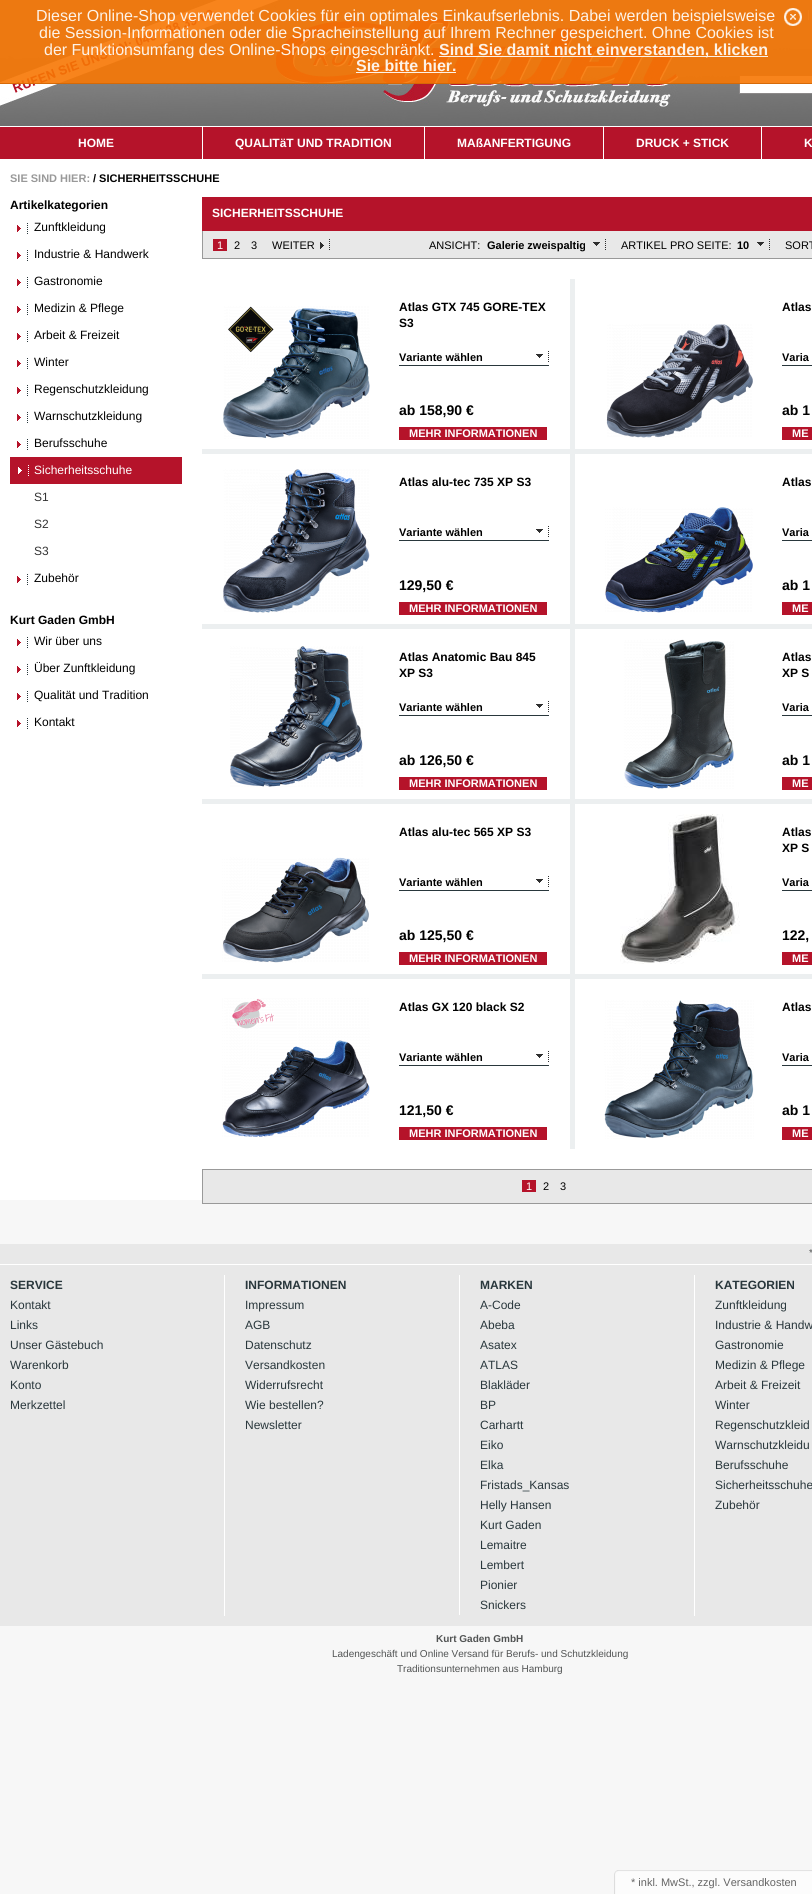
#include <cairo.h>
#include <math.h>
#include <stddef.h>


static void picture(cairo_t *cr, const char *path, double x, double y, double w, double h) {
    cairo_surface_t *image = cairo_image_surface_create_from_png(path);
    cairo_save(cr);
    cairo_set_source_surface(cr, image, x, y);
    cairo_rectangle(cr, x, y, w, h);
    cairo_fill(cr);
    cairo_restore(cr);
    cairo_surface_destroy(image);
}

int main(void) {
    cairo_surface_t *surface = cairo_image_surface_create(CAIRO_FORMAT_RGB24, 812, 1894);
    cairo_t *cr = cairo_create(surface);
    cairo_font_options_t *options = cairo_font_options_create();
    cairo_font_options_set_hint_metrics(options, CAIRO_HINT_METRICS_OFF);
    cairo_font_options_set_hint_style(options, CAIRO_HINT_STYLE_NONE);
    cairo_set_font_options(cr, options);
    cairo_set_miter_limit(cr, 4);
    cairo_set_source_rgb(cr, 0.965, 0.965, 0.965);
    cairo_paint(cr);
    cairo_set_source_rgb(cr, 1, 1, 1);
    cairo_rectangle(cr, 0, 126, 812, 1074);
    cairo_fill(cr);
    picture(cr, "img1.png", 0, 0, 812, 126);
    cairo_set_source_rgb(cr, 0.706, 0.722, 0.722);
    cairo_rectangle(cr, 808, 10, 1, 10);
    cairo_fill(cr);
    cairo_set_source_rgb(cr, 1, 1, 1);
    cairo_rectangle(cr, 739.5, 75.5, 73, 18);
    cairo_fill_preserve(cr);
    cairo_set_source_rgb(cr, 0.549, 0.537, 0.537);
    cairo_set_line_width(cr, 1);
    cairo_stroke(cr);
    cairo_set_source_rgba(cr, 0.969, 0.467, 0.016, 0.9);
    cairo_rectangle(cr, 0, 0, 812, 84);
    cairo_fill(cr);
    cairo_set_source_rgba(cr, 0.827, 0.404, 0.024, 0.9);
    cairo_rectangle(cr, 0, 83, 812, 1);
    cairo_fill(cr);
    cairo_select_font_face(cr, "Liberation Sans", CAIRO_FONT_SLANT_NORMAL, CAIRO_FONT_WEIGHT_NORMAL);
    cairo_set_font_size(cr, 16);
    cairo_set_source_rgb(cr, 0.992, 0.949, 0.906);
    cairo_move_to(cr, 36, 21);
    cairo_show_text(cr, "Dieser Online-Shop verwendet Cookies für ein optimales Einkaufserlebnis. Dabei werden beispielsweise");
    picture(cr, "img2.png", 784, 8, 18, 18);
    cairo_move_to(cr, 39, 38);
    cairo_show_text(cr, "die Session-Informationen oder die Spracheinstellung auf Ihrem Rechner gespeichert. Ohne Cookies ist");
    cairo_move_to(cr, 44, 55);
    cairo_show_text(cr, "der Funktionsumfang des Online-Shops eingeschränkt.");
    cairo_set_source_rgba(cr, 1, 1, 1, 0.9);
    cairo_rectangle(cr, 439, 56, 329, 1);
    cairo_fill(cr);
    cairo_select_font_face(cr, "Liberation Sans", CAIRO_FONT_SLANT_NORMAL, CAIRO_FONT_WEIGHT_BOLD);
    cairo_set_source_rgb(cr, 0.992, 0.949, 0.906);
    cairo_move_to(cr, 439, 55);
    cairo_show_text(cr, "Sind Sie damit nicht einverstanden, klicken");
    cairo_move_to(cr, 356, 71);
    cairo_show_text(cr, "Sie bitte hier.");
    cairo_set_source_rgba(cr, 1, 1, 1, 0.9);
    cairo_rectangle(cr, 356, 72, 100, 1);
    cairo_fill(cr);
    cairo_set_source_rgb(cr, 0.71, 0.075, 0.165);
    cairo_rectangle(cr, 0, 127, 812, 32);
    cairo_fill(cr);
    cairo_set_source_rgb(cr, 1, 1, 1);
    cairo_rectangle(cr, 202, 127, 1, 32);
    cairo_fill(cr);
    cairo_set_font_size(cr, 12);
    cairo_move_to(cr, 78, 147);
    cairo_show_text(cr, "HOME");
    cairo_rectangle(cr, 424, 127, 1, 32);
    cairo_fill(cr);
    cairo_move_to(cr, 235, 147);
    cairo_show_text(cr, "QUALITäT UND TRADITION");
    cairo_rectangle(cr, 603, 127, 1, 32);
    cairo_fill(cr);
    cairo_move_to(cr, 457, 147);
    cairo_show_text(cr, "MAßANFERTIGUNG");
    cairo_rectangle(cr, 761, 127, 1, 32);
    cairo_fill(cr);
    cairo_move_to(cr, 636, 147);
    cairo_show_text(cr, "DRUCK + STICK");
    cairo_move_to(cr, 804, 147);
    cairo_show_text(cr, "K");
    cairo_set_font_size(cr, 11);
    cairo_set_source_rgb(cr, 0.6, 0.6, 0.6);
    cairo_move_to(cr, 10, 182);
    cairo_show_text(cr, "SIE SIND HIER:");
    cairo_set_source_rgb(cr, 0, 0, 0);
    cairo_move_to(cr, 93, 182);
    cairo_show_text(cr, "/ SICHERHEITSSCHUHE");
    cairo_set_font_size(cr, 12);
    cairo_move_to(cr, 10, 209);
    cairo_show_text(cr, "Artikelkategorien");
    picture(cr, "img3.png", 17, 223, 11, 11);
    cairo_select_font_face(cr, "Liberation Sans", CAIRO_FONT_SLANT_NORMAL, CAIRO_FONT_WEIGHT_NORMAL);
    cairo_move_to(cr, 34, 231);
    cairo_show_text(cr, "Zunftkleidung");
    picture(cr, "img3.png", 17, 250, 11, 11);
    cairo_move_to(cr, 34, 258);
    cairo_show_text(cr, "Industrie & Handwerk");
    picture(cr, "img3.png", 17, 277, 11, 11);
    cairo_move_to(cr, 34, 285);
    cairo_show_text(cr, "Gastronomie");
    picture(cr, "img3.png", 17, 304, 11, 11);
    cairo_move_to(cr, 34, 312);
    cairo_show_text(cr, "Medizin & Pflege");
    picture(cr, "img3.png", 17, 331, 11, 11);
    cairo_move_to(cr, 34, 339);
    cairo_show_text(cr, "Arbeit & Freizeit");
    picture(cr, "img3.png", 17, 358, 11, 11);
    cairo_move_to(cr, 34, 366);
    cairo_show_text(cr, "Winter");
    picture(cr, "img3.png", 17, 385, 11, 11);
    cairo_move_to(cr, 34, 393);
    cairo_show_text(cr, "Regenschutzkleidung");
    picture(cr, "img3.png", 17, 412, 11, 11);
    cairo_move_to(cr, 34, 420);
    cairo_show_text(cr, "Warnschutzkleidung");
    picture(cr, "img3.png", 17, 439, 11, 11);
    cairo_move_to(cr, 34, 447);
    cairo_show_text(cr, "Berufsschuhe");
    cairo_set_source_rgb(cr, 0.71, 0.075, 0.165);
    cairo_rectangle(cr, 10, 457, 172, 27);
    cairo_fill(cr);
    picture(cr, "img4.png", 18, 465, 11, 11);
    cairo_set_source_rgb(cr, 1, 1, 1);
    cairo_move_to(cr, 34, 474);
    cairo_show_text(cr, "Sicherheitsschuhe");
    cairo_set_source_rgb(cr, 0.2, 0.2, 0.2);
    cairo_move_to(cr, 34, 501);
    cairo_show_text(cr, "S1");
    cairo_move_to(cr, 34, 528);
    cairo_show_text(cr, "S2");
    cairo_move_to(cr, 34, 555);
    cairo_show_text(cr, "S3");
    picture(cr, "img3.png", 17, 574, 11, 11);
    cairo_set_source_rgb(cr, 0, 0, 0);
    cairo_move_to(cr, 34, 582);
    cairo_show_text(cr, "Zubehör");
    cairo_select_font_face(cr, "Liberation Sans", CAIRO_FONT_SLANT_NORMAL, CAIRO_FONT_WEIGHT_BOLD);
    cairo_move_to(cr, 10, 624);
    cairo_show_text(cr, "Kurt Gaden GmbH");
    picture(cr, "img3.png", 17, 637, 11, 11);
    cairo_select_font_face(cr, "Liberation Sans", CAIRO_FONT_SLANT_NORMAL, CAIRO_FONT_WEIGHT_NORMAL);
    cairo_move_to(cr, 34, 645);
    cairo_show_text(cr, "Wir über uns");
    picture(cr, "img3.png", 17, 664, 11, 11);
    cairo_move_to(cr, 34, 672);
    cairo_show_text(cr, "Über Zunftkleidung");
    picture(cr, "img3.png", 17, 691, 11, 11);
    cairo_move_to(cr, 34, 699);
    cairo_show_text(cr, "Qualität und Tradition");
    picture(cr, "img3.png", 17, 718, 11, 11);
    cairo_move_to(cr, 34, 726);
    cairo_show_text(cr, "Kontakt");
    cairo_set_source_rgb(cr, 0.71, 0.075, 0.165);
    cairo_rectangle(cr, 202, 197, 610, 34);
    cairo_fill(cr);
    cairo_select_font_face(cr, "Liberation Sans", CAIRO_FONT_SLANT_NORMAL, CAIRO_FONT_WEIGHT_BOLD);
    cairo_set_source_rgb(cr, 1, 1, 1);
    cairo_move_to(cr, 212, 217);
    cairo_show_text(cr, "SICHERHEITSSCHUHE");
    cairo_set_source_rgb(cr, 0.91, 0.91, 0.91);
    cairo_rectangle(cr, 203, 231, 609, 27);
    cairo_fill(cr);
    cairo_set_source_rgb(cr, 0.6, 0.6, 0.6);
    cairo_rectangle(cr, 202, 258, 610, 1);
    cairo_fill(cr);
    cairo_rectangle(cr, 202, 231, 1, 28);
    cairo_fill(cr);
    picture(cr, "img5.png", 329, 239, 1, 11);
    cairo_set_source_rgb(cr, 0.71, 0.075, 0.165);
    cairo_rectangle(cr, 213, 239, 14, 12);
    cairo_fill(cr);
    cairo_select_font_face(cr, "Liberation Sans", CAIRO_FONT_SLANT_NORMAL, CAIRO_FONT_WEIGHT_NORMAL);
    cairo_set_font_size(cr, 11);
    cairo_set_source_rgb(cr, 1, 1, 1);
    cairo_move_to(cr, 217, 249);
    cairo_show_text(cr, "1");
    cairo_set_source_rgb(cr, 0, 0, 0);
    cairo_move_to(cr, 234, 249);
    cairo_show_text(cr, "2");
    cairo_move_to(cr, 251, 249);
    cairo_show_text(cr, "3");
    cairo_move_to(cr, 272, 249);
    cairo_show_text(cr, "WEITER");
    picture(cr, "img6.png", 320, 242, 4, 7);
    picture(cr, "img7.png", 593, 239, 13, 11);
    cairo_move_to(cr, 429, 249);
    cairo_show_text(cr, "ANSICHT:");
    cairo_select_font_face(cr, "Liberation Sans", CAIRO_FONT_SLANT_NORMAL, CAIRO_FONT_WEIGHT_BOLD);
    cairo_move_to(cr, 487, 249);
    cairo_show_text(cr, "Galerie zweispaltig");
    picture(cr, "img7.png", 757, 239, 13, 11);
    cairo_select_font_face(cr, "Liberation Sans", CAIRO_FONT_SLANT_NORMAL, CAIRO_FONT_WEIGHT_NORMAL);
    cairo_move_to(cr, 621, 249);
    cairo_show_text(cr, "ARTIKEL PRO SEITE:");
    cairo_select_font_face(cr, "Liberation Sans", CAIRO_FONT_SLANT_NORMAL, CAIRO_FONT_WEIGHT_BOLD);
    cairo_move_to(cr, 737, 249);
    cairo_show_text(cr, "10");
    cairo_select_font_face(cr, "Liberation Sans", CAIRO_FONT_SLANT_NORMAL, CAIRO_FONT_WEIGHT_NORMAL);
    cairo_move_to(cr, 785, 249);
    cairo_show_text(cr, "SORT");
    cairo_set_source_rgb(cr, 0.925, 0.937, 0.941);
    cairo_rectangle(cr, 570, 279, 5, 170);
    cairo_fill(cr);
    picture(cr, "img8.png", 223, 306, 147, 133);
    cairo_select_font_face(cr, "Liberation Sans", CAIRO_FONT_SLANT_NORMAL, CAIRO_FONT_WEIGHT_BOLD);
    cairo_set_font_size(cr, 12);
    cairo_set_source_rgb(cr, 0, 0, 0);
    cairo_move_to(cr, 399, 311);
    cairo_show_text(cr, "Atlas GTX 745 GORE-TEX");
    cairo_move_to(cr, 399, 327);
    cairo_show_text(cr, "S3");
    picture(cr, "img9.png", 536, 351, 13, 11);
    cairo_set_source_rgb(cr, 0.161, 0.216, 0.235);
    cairo_rectangle(cr, 399, 365, 150, 1);
    cairo_fill(cr);
    cairo_set_font_size(cr, 11);
    cairo_set_source_rgb(cr, 0, 0, 0);
    cairo_move_to(cr, 399, 361);
    cairo_show_text(cr, "Variante wählen");
    cairo_set_font_size(cr, 14);
    cairo_move_to(cr, 399, 415);
    cairo_show_text(cr, "ab 158,90 €");
    cairo_set_source_rgb(cr, 0.71, 0.075, 0.165);
    cairo_rectangle(cr, 399, 427, 148, 13);
    cairo_fill(cr);
    cairo_set_font_size(cr, 11);
    cairo_set_source_rgb(cr, 1, 1, 1);
    cairo_move_to(cr, 409, 437);
    cairo_show_text(cr, "MEHR INFORMATIONEN");
    picture(cr, "img10.png", 606, 324, 147, 114);
    cairo_set_font_size(cr, 12);
    cairo_set_source_rgb(cr, 0, 0, 0);
    cairo_move_to(cr, 782, 311);
    cairo_show_text(cr, "Atlas");
    cairo_set_source_rgb(cr, 0.161, 0.216, 0.235);
    cairo_rectangle(cr, 782, 365, 30, 1);
    cairo_fill(cr);
    cairo_set_font_size(cr, 11);
    cairo_set_source_rgb(cr, 0, 0, 0);
    cairo_move_to(cr, 782, 361);
    cairo_show_text(cr, "Varia");
    cairo_set_font_size(cr, 14);
    cairo_move_to(cr, 782, 415);
    cairo_show_text(cr, "ab 1");
    cairo_set_source_rgb(cr, 0.71, 0.075, 0.165);
    cairo_rectangle(cr, 782, 427, 30, 13);
    cairo_fill(cr);
    cairo_set_font_size(cr, 11);
    cairo_set_source_rgb(cr, 1, 1, 1);
    cairo_move_to(cr, 792, 437);
    cairo_show_text(cr, "ME");
    cairo_set_source_rgb(cr, 0.925, 0.937, 0.941);
    cairo_rectangle(cr, 202, 449, 610, 5);
    cairo_fill(cr);
    cairo_rectangle(cr, 570, 449, 5, 175);
    cairo_fill(cr);
    picture(cr, "img11.png", 223, 469, 147, 144);
    cairo_set_font_size(cr, 12);
    cairo_set_source_rgb(cr, 0, 0, 0);
    cairo_move_to(cr, 399, 486);
    cairo_show_text(cr, "Atlas alu-tec 735 XP S3");
    picture(cr, "img9.png", 536, 526, 13, 11);
    cairo_set_source_rgb(cr, 0.161, 0.216, 0.235);
    cairo_rectangle(cr, 399, 540, 150, 1);
    cairo_fill(cr);
    cairo_set_font_size(cr, 11);
    cairo_set_source_rgb(cr, 0, 0, 0);
    cairo_move_to(cr, 399, 536);
    cairo_show_text(cr, "Variante wählen");
    cairo_set_font_size(cr, 14);
    cairo_move_to(cr, 399, 590);
    cairo_show_text(cr, "129,50 €");
    cairo_set_source_rgb(cr, 0.71, 0.075, 0.165);
    cairo_rectangle(cr, 399, 602, 148, 13);
    cairo_fill(cr);
    cairo_set_font_size(cr, 11);
    cairo_set_source_rgb(cr, 1, 1, 1);
    cairo_move_to(cr, 409, 612);
    cairo_show_text(cr, "MEHR INFORMATIONEN");
    picture(cr, "img12.png", 605, 507, 148, 106);
    cairo_set_font_size(cr, 12);
    cairo_set_source_rgb(cr, 0, 0, 0);
    cairo_move_to(cr, 782, 486);
    cairo_show_text(cr, "Atlas");
    cairo_set_source_rgb(cr, 0.161, 0.216, 0.235);
    cairo_rectangle(cr, 782, 540, 30, 1);
    cairo_fill(cr);
    cairo_set_font_size(cr, 11);
    cairo_set_source_rgb(cr, 0, 0, 0);
    cairo_move_to(cr, 782, 536);
    cairo_show_text(cr, "Varia");
    cairo_set_font_size(cr, 14);
    cairo_move_to(cr, 782, 590);
    cairo_show_text(cr, "ab 1");
    cairo_set_source_rgb(cr, 0.71, 0.075, 0.165);
    cairo_rectangle(cr, 782, 602, 30, 13);
    cairo_fill(cr);
    cairo_set_font_size(cr, 11);
    cairo_set_source_rgb(cr, 1, 1, 1);
    cairo_move_to(cr, 792, 612);
    cairo_show_text(cr, "ME");
    cairo_set_source_rgb(cr, 0.925, 0.937, 0.941);
    cairo_rectangle(cr, 202, 624, 610, 5);
    cairo_fill(cr);
    cairo_rectangle(cr, 570, 624, 5, 175);
    cairo_fill(cr);
    picture(cr, "img13.png", 230, 646, 133, 141);
    cairo_set_font_size(cr, 12);
    cairo_set_source_rgb(cr, 0, 0, 0);
    cairo_move_to(cr, 399, 661);
    cairo_show_text(cr, "Atlas Anatomic Bau 845");
    cairo_move_to(cr, 399, 677);
    cairo_show_text(cr, "XP S3");
    picture(cr, "img9.png", 536, 701, 13, 11);
    cairo_set_source_rgb(cr, 0.161, 0.216, 0.235);
    cairo_rectangle(cr, 399, 715, 150, 1);
    cairo_fill(cr);
    cairo_set_font_size(cr, 11);
    cairo_set_source_rgb(cr, 0, 0, 0);
    cairo_move_to(cr, 399, 711);
    cairo_show_text(cr, "Variante wählen");
    cairo_set_font_size(cr, 14);
    cairo_move_to(cr, 399, 765);
    cairo_show_text(cr, "ab 126,50 €");
    cairo_set_source_rgb(cr, 0.71, 0.075, 0.165);
    cairo_rectangle(cr, 399, 777, 148, 13);
    cairo_fill(cr);
    cairo_set_font_size(cr, 11);
    cairo_set_source_rgb(cr, 1, 1, 1);
    cairo_move_to(cr, 409, 787);
    cairo_show_text(cr, "MEHR INFORMATIONEN");
    picture(cr, "img14.png", 624, 639, 110, 150);
    cairo_set_font_size(cr, 12);
    cairo_set_source_rgb(cr, 0, 0, 0);
    cairo_move_to(cr, 782, 661);
    cairo_show_text(cr, "Atlas");
    cairo_move_to(cr, 782, 677);
    cairo_show_text(cr, "XP S");
    cairo_set_source_rgb(cr, 0.161, 0.216, 0.235);
    cairo_rectangle(cr, 782, 715, 30, 1);
    cairo_fill(cr);
    cairo_set_font_size(cr, 11);
    cairo_set_source_rgb(cr, 0, 0, 0);
    cairo_move_to(cr, 782, 711);
    cairo_show_text(cr, "Varia");
    cairo_set_font_size(cr, 14);
    cairo_move_to(cr, 782, 765);
    cairo_show_text(cr, "ab 1");
    cairo_set_source_rgb(cr, 0.71, 0.075, 0.165);
    cairo_rectangle(cr, 782, 777, 30, 13);
    cairo_fill(cr);
    cairo_set_font_size(cr, 11);
    cairo_set_source_rgb(cr, 1, 1, 1);
    cairo_move_to(cr, 792, 787);
    cairo_show_text(cr, "ME");
    cairo_set_source_rgb(cr, 0.925, 0.937, 0.941);
    cairo_rectangle(cr, 202, 799, 610, 5);
    cairo_fill(cr);
    cairo_rectangle(cr, 570, 799, 5, 175);
    cairo_fill(cr);
    picture(cr, "img15.png", 222, 857, 147, 106);
    cairo_set_font_size(cr, 12);
    cairo_set_source_rgb(cr, 0, 0, 0);
    cairo_move_to(cr, 399, 836);
    cairo_show_text(cr, "Atlas alu-tec 565 XP S3");
    picture(cr, "img9.png", 536, 876, 13, 11);
    cairo_set_source_rgb(cr, 0.161, 0.216, 0.235);
    cairo_rectangle(cr, 399, 890, 150, 1);
    cairo_fill(cr);
    cairo_set_font_size(cr, 11);
    cairo_set_source_rgb(cr, 0, 0, 0);
    cairo_move_to(cr, 399, 886);
    cairo_show_text(cr, "Variante wählen");
    cairo_set_font_size(cr, 14);
    cairo_move_to(cr, 399, 940);
    cairo_show_text(cr, "ab 125,50 €");
    cairo_set_source_rgb(cr, 0.71, 0.075, 0.165);
    cairo_rectangle(cr, 399, 952, 148, 13);
    cairo_fill(cr);
    cairo_set_font_size(cr, 11);
    cairo_set_source_rgb(cr, 1, 1, 1);
    cairo_move_to(cr, 409, 962);
    cairo_show_text(cr, "MEHR INFORMATIONEN");
    picture(cr, "img16.png", 620, 814, 120, 150);
    cairo_set_font_size(cr, 12);
    cairo_set_source_rgb(cr, 0, 0, 0);
    cairo_move_to(cr, 782, 836);
    cairo_show_text(cr, "Atlas");
    cairo_move_to(cr, 782, 852);
    cairo_show_text(cr, "XP S");
    cairo_set_source_rgb(cr, 0.161, 0.216, 0.235);
    cairo_rectangle(cr, 782, 890, 30, 1);
    cairo_fill(cr);
    cairo_set_font_size(cr, 11);
    cairo_set_source_rgb(cr, 0, 0, 0);
    cairo_move_to(cr, 782, 886);
    cairo_show_text(cr, "Varia");
    cairo_set_font_size(cr, 14);
    cairo_move_to(cr, 782, 940);
    cairo_show_text(cr, "122,");
    cairo_set_source_rgb(cr, 0.71, 0.075, 0.165);
    cairo_rectangle(cr, 782, 952, 30, 13);
    cairo_fill(cr);
    cairo_set_font_size(cr, 11);
    cairo_set_source_rgb(cr, 1, 1, 1);
    cairo_move_to(cr, 792, 962);
    cairo_show_text(cr, "ME");
    cairo_set_source_rgb(cr, 0.925, 0.937, 0.941);
    cairo_rectangle(cr, 202, 974, 610, 5);
    cairo_fill(cr);
    cairo_rectangle(cr, 570, 974, 5, 175);
    cairo_fill(cr);
    picture(cr, "img17.png", 222, 998, 148, 139);
    cairo_set_font_size(cr, 12);
    cairo_set_source_rgb(cr, 0, 0, 0);
    cairo_move_to(cr, 399, 1011);
    cairo_show_text(cr, "Atlas GX 120 black S2");
    picture(cr, "img9.png", 536, 1051, 13, 11);
    cairo_set_source_rgb(cr, 0.161, 0.216, 0.235);
    cairo_rectangle(cr, 399, 1065, 150, 1);
    cairo_fill(cr);
    cairo_set_font_size(cr, 11);
    cairo_set_source_rgb(cr, 0, 0, 0);
    cairo_move_to(cr, 399, 1061);
    cairo_show_text(cr, "Variante wählen");
    cairo_set_font_size(cr, 14);
    cairo_move_to(cr, 399, 1115);
    cairo_show_text(cr, "121,50 €");
    cairo_set_source_rgb(cr, 0.71, 0.075, 0.165);
    cairo_rectangle(cr, 399, 1127, 148, 13);
    cairo_fill(cr);
    cairo_set_font_size(cr, 11);
    cairo_set_source_rgb(cr, 1, 1, 1);
    cairo_move_to(cr, 409, 1137);
    cairo_show_text(cr, "MEHR INFORMATIONEN");
    picture(cr, "img18.png", 604, 1000, 150, 139);
    cairo_set_font_size(cr, 12);
    cairo_set_source_rgb(cr, 0, 0, 0);
    cairo_move_to(cr, 782, 1011);
    cairo_show_text(cr, "Atlas");
    cairo_set_source_rgb(cr, 0.161, 0.216, 0.235);
    cairo_rectangle(cr, 782, 1065, 30, 1);
    cairo_fill(cr);
    cairo_set_font_size(cr, 11);
    cairo_set_source_rgb(cr, 0, 0, 0);
    cairo_move_to(cr, 782, 1061);
    cairo_show_text(cr, "Varia");
    cairo_set_font_size(cr, 14);
    cairo_move_to(cr, 782, 1115);
    cairo_show_text(cr, "ab 1");
    cairo_set_source_rgb(cr, 0.71, 0.075, 0.165);
    cairo_rectangle(cr, 782, 1127, 30, 13);
    cairo_fill(cr);
    cairo_set_font_size(cr, 11);
    cairo_set_source_rgb(cr, 1, 1, 1);
    cairo_move_to(cr, 792, 1137);
    cairo_show_text(cr, "ME");
    cairo_set_source_rgb(cr, 0.91, 0.91, 0.91);
    cairo_rectangle(cr, 202.5, 1169.5, 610, 34);
    cairo_fill_preserve(cr);
    cairo_set_source_rgb(cr, 0.6, 0.6, 0.6);
    cairo_stroke(cr);
    cairo_set_source_rgb(cr, 0.71, 0.075, 0.165);
    cairo_rectangle(cr, 522, 1180, 14, 12);
    cairo_fill(cr);
    cairo_select_font_face(cr, "Liberation Sans", CAIRO_FONT_SLANT_NORMAL, CAIRO_FONT_WEIGHT_NORMAL);
    cairo_set_source_rgb(cr, 1, 1, 1);
    cairo_move_to(cr, 526, 1190);
    cairo_show_text(cr, "1");
    cairo_set_source_rgb(cr, 0, 0, 0);
    cairo_move_to(cr, 543, 1190);
    cairo_show_text(cr, "2");
    cairo_move_to(cr, 560, 1190);
    cairo_show_text(cr, "3");
    cairo_set_source_rgb(cr, 0.91, 0.91, 0.91);
    cairo_rectangle(cr, 0, 1244, 812, 382);
    cairo_fill(cr);
    cairo_set_source_rgb(cr, 1, 1, 1);
    cairo_rectangle(cr, 0, 1264, 812, 1);
    cairo_fill(cr);
    cairo_set_font_size(cr, 10);
    cairo_set_source_rgb(cr, 0.318, 0.325, 0.325);
    cairo_move_to(cr, 809, 1256);
    cairo_show_text(cr, "*");
    cairo_select_font_face(cr, "Liberation Sans", CAIRO_FONT_SLANT_NORMAL, CAIRO_FONT_WEIGHT_BOLD);
    cairo_set_font_size(cr, 12);
    cairo_set_source_rgb(cr, 0.161, 0.216, 0.235);
    cairo_move_to(cr, 10, 1289);
    cairo_show_text(cr, "SERVICE");
    cairo_select_font_face(cr, "Liberation Sans", CAIRO_FONT_SLANT_NORMAL, CAIRO_FONT_WEIGHT_NORMAL);
    cairo_move_to(cr, 10, 1309);
    cairo_show_text(cr, "Kontakt");
    cairo_move_to(cr, 10, 1329);
    cairo_show_text(cr, "Links");
    cairo_move_to(cr, 10, 1349);
    cairo_show_text(cr, "Unser Gästebuch");
    cairo_move_to(cr, 10, 1369);
    cairo_show_text(cr, "Warenkorb");
    cairo_move_to(cr, 10, 1389);
    cairo_show_text(cr, "Konto");
    cairo_move_to(cr, 10, 1409);
    cairo_show_text(cr, "Merkzettel");
    cairo_set_source_rgb(cr, 1, 1, 1);
    cairo_rectangle(cr, 224, 1275, 1, 341);
    cairo_fill(cr);
    cairo_select_font_face(cr, "Liberation Sans", CAIRO_FONT_SLANT_NORMAL, CAIRO_FONT_WEIGHT_BOLD);
    cairo_set_source_rgb(cr, 0.161, 0.216, 0.235);
    cairo_move_to(cr, 245, 1289);
    cairo_show_text(cr, "INFORMATIONEN");
    cairo_select_font_face(cr, "Liberation Sans", CAIRO_FONT_SLANT_NORMAL, CAIRO_FONT_WEIGHT_NORMAL);
    cairo_move_to(cr, 245, 1309);
    cairo_show_text(cr, "Impressum");
    cairo_move_to(cr, 245, 1329);
    cairo_show_text(cr, "AGB");
    cairo_move_to(cr, 245, 1349);
    cairo_show_text(cr, "Datenschutz");
    cairo_move_to(cr, 245, 1369);
    cairo_show_text(cr, "Versandkosten");
    cairo_move_to(cr, 245, 1389);
    cairo_show_text(cr, "Widerrufsrecht");
    cairo_move_to(cr, 245, 1409);
    cairo_show_text(cr, "Wie bestellen?");
    cairo_move_to(cr, 245, 1429);
    cairo_show_text(cr, "Newsletter");
    cairo_set_source_rgb(cr, 1, 1, 1);
    cairo_rectangle(cr, 459, 1275, 1, 340);
    cairo_fill(cr);
    cairo_select_font_face(cr, "Liberation Sans", CAIRO_FONT_SLANT_NORMAL, CAIRO_FONT_WEIGHT_BOLD);
    cairo_set_source_rgb(cr, 0.161, 0.216, 0.235);
    cairo_move_to(cr, 480, 1289);
    cairo_show_text(cr, "MARKEN");
    cairo_select_font_face(cr, "Liberation Sans", CAIRO_FONT_SLANT_NORMAL, CAIRO_FONT_WEIGHT_NORMAL);
    cairo_move_to(cr, 480, 1309);
    cairo_show_text(cr, "A-Code");
    cairo_move_to(cr, 480, 1329);
    cairo_show_text(cr, "Abeba");
    cairo_move_to(cr, 480, 1349);
    cairo_show_text(cr, "Asatex");
    cairo_move_to(cr, 480, 1369);
    cairo_show_text(cr, "ATLAS");
    cairo_move_to(cr, 480, 1389);
    cairo_show_text(cr, "Blakläder");
    cairo_move_to(cr, 480, 1409);
    cairo_show_text(cr, "BP");
    cairo_move_to(cr, 480, 1429);
    cairo_show_text(cr, "Carhartt");
    cairo_move_to(cr, 480, 1449);
    cairo_show_text(cr, "Eiko");
    cairo_move_to(cr, 480, 1469);
    cairo_show_text(cr, "Elka");
    cairo_move_to(cr, 480, 1489);
    cairo_show_text(cr, "Fristads_Kansas");
    cairo_move_to(cr, 480, 1509);
    cairo_show_text(cr, "Helly Hansen");
    cairo_move_to(cr, 480, 1529);
    cairo_show_text(cr, "Kurt Gaden");
    cairo_move_to(cr, 480, 1549);
    cairo_show_text(cr, "Lemaitre");
    cairo_move_to(cr, 480, 1569);
    cairo_show_text(cr, "Lembert");
    cairo_move_to(cr, 480, 1589);
    cairo_show_text(cr, "Pionier");
    cairo_move_to(cr, 480, 1609);
    cairo_show_text(cr, "Snickers");
    cairo_set_source_rgb(cr, 1, 1, 1);
    cairo_rectangle(cr, 694, 1275, 1, 341);
    cairo_fill(cr);
    cairo_select_font_face(cr, "Liberation Sans", CAIRO_FONT_SLANT_NORMAL, CAIRO_FONT_WEIGHT_BOLD);
    cairo_set_source_rgb(cr, 0.161, 0.216, 0.235);
    cairo_move_to(cr, 715, 1289);
    cairo_show_text(cr, "KATEGORIEN");
    cairo_select_font_face(cr, "Liberation Sans", CAIRO_FONT_SLANT_NORMAL, CAIRO_FONT_WEIGHT_NORMAL);
    cairo_move_to(cr, 715, 1309);
    cairo_show_text(cr, "Zunftkleidung");
    cairo_move_to(cr, 715, 1329);
    cairo_show_text(cr, "Industrie & Handw");
    cairo_move_to(cr, 715, 1349);
    cairo_show_text(cr, "Gastronomie");
    cairo_move_to(cr, 715, 1369);
    cairo_show_text(cr, "Medizin & Pflege");
    cairo_move_to(cr, 715, 1389);
    cairo_show_text(cr, "Arbeit & Freizeit");
    cairo_move_to(cr, 715, 1409);
    cairo_show_text(cr, "Winter");
    cairo_move_to(cr, 715, 1429);
    cairo_show_text(cr, "Regenschutzkleid");
    cairo_move_to(cr, 715, 1449);
    cairo_show_text(cr, "Warnschutzkleidu");
    cairo_move_to(cr, 715, 1469);
    cairo_show_text(cr, "Berufsschuhe");
    cairo_move_to(cr, 715, 1489);
    cairo_show_text(cr, "Sicherheitsschuhe");
    cairo_move_to(cr, 715, 1509);
    cairo_show_text(cr, "Zubehör");
    cairo_select_font_face(cr, "Liberation Sans", CAIRO_FONT_SLANT_NORMAL, CAIRO_FONT_WEIGHT_BOLD);
    cairo_set_font_size(cr, 10);
    cairo_set_source_rgb(cr, 0.318, 0.325, 0.325);
    cairo_move_to(cr, 436, 1642);
    cairo_show_text(cr, "Kurt Gaden GmbH");
    cairo_select_font_face(cr, "Liberation Sans", CAIRO_FONT_SLANT_NORMAL, CAIRO_FONT_WEIGHT_NORMAL);
    cairo_move_to(cr, 332, 1657);
    cairo_show_text(cr, "Ladengeschäft und Online Versand für Berufs- und Schutzkleidung");
    cairo_move_to(cr, 397, 1672);
    cairo_show_text(cr, "Traditionsunternehmen aus Hamburg");
    picture(cr, "img19.png", 614, 1870, 198, 24);
    cairo_set_font_size(cr, 11);
    cairo_set_source_rgb(cr, 0.396, 0.396, 0.396);
    cairo_move_to(cr, 631, 1886);
    cairo_show_text(cr, "* inkl. MwSt., zzgl. Versandkosten");
    cairo_surface_write_to_png(surface, "page.png");
    cairo_font_options_destroy(options);
    cairo_destroy(cr);
    cairo_surface_destroy(surface);
    return 0;
}
